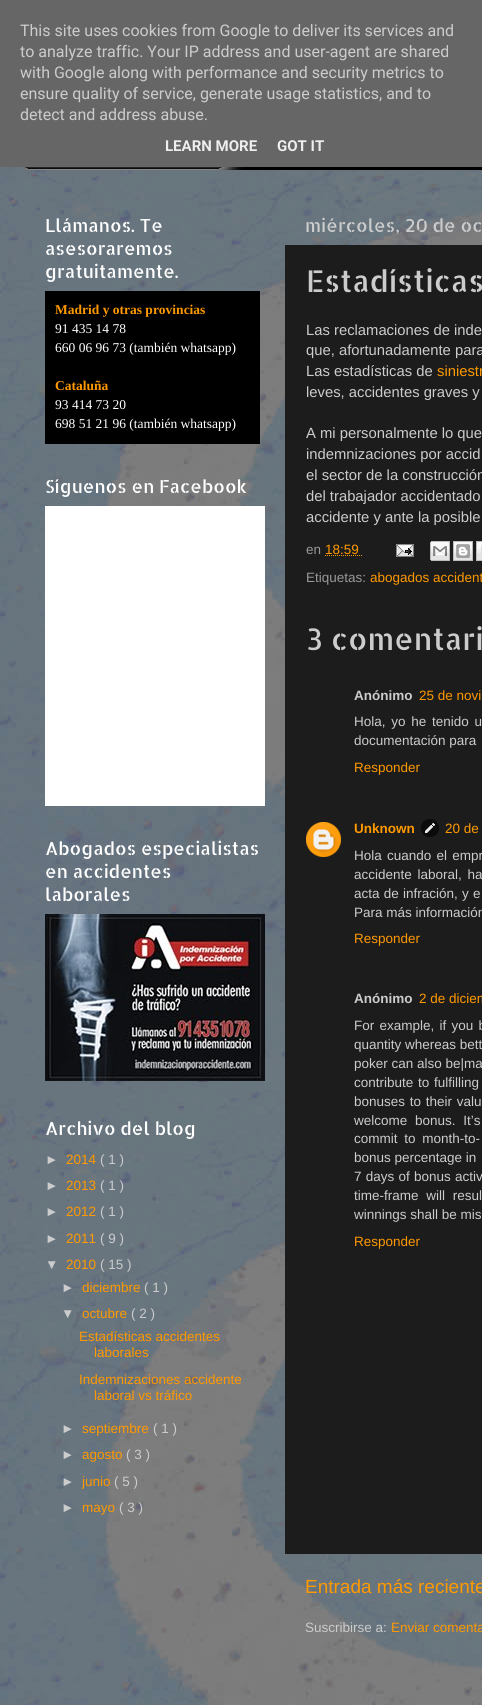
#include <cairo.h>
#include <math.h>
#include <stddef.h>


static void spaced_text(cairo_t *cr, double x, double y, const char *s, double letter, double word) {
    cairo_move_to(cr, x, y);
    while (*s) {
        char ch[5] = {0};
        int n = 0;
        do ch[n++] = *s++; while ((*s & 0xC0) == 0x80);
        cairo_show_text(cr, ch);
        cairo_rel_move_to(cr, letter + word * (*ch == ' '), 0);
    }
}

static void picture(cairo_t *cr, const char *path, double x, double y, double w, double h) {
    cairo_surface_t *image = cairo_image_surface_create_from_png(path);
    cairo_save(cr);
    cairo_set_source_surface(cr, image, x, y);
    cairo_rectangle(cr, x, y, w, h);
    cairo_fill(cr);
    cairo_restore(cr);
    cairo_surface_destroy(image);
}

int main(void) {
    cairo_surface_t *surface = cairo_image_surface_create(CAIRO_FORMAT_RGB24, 482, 1705);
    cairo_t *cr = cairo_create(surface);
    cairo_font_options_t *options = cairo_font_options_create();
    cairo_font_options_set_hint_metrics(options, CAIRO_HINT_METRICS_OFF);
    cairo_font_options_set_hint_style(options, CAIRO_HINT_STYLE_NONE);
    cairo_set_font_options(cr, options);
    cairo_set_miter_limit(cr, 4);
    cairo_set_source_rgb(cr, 1, 1, 1);
    cairo_paint(cr);
    picture(cr, "img1.png", 0, 167, 482, 1538);
    cairo_set_source_rgb(cr, 0.4, 0.4, 0.4);
    cairo_rectangle(cr, 0, 0, 482, 167);
    cairo_fill(cr);
    cairo_select_font_face(cr, "Roboto", CAIRO_FONT_SLANT_NORMAL, CAIRO_FONT_WEIGHT_NORMAL);
    cairo_set_font_size(cr, 16);
    cairo_set_source_rgb(cr, 0.8, 0.8, 0.8);
    cairo_move_to(cr, 20, 36);
    cairo_show_text(cr, "This site uses cookies from Google to deliver its services and");
    cairo_move_to(cr, 20, 57);
    cairo_show_text(cr, "to analyze traffic. Your IP address and user-agent are shared");
    cairo_move_to(cr, 20, 78);
    cairo_show_text(cr, "with Google along with performance and security metrics to");
    cairo_move_to(cr, 20, 99);
    cairo_show_text(cr, "ensure quality of service, generate usage statistics, and to");
    cairo_move_to(cr, 20, 120);
    cairo_show_text(cr, "detect and address abuse.");
    cairo_select_font_face(cr, "Roboto", CAIRO_FONT_SLANT_NORMAL, CAIRO_FONT_WEIGHT_BOLD);
    cairo_set_font_size(cr, 15);
    cairo_set_source_rgb(cr, 0.933, 0.933, 0.933);
    cairo_move_to(cr, 165, 151);
    cairo_show_text(cr, "LEARN MORE");
    cairo_move_to(cr, 277, 151);
    cairo_show_text(cr, "GOT IT");
    picture(cr, "img2.png", 25, 167, 457, 3);
    cairo_select_font_face(cr, "Allerta Stencil", CAIRO_FONT_SLANT_NORMAL, CAIRO_FONT_WEIGHT_NORMAL);
    cairo_set_font_size(cr, 18);
    cairo_set_source_rgb(cr, 1, 1, 1);
    cairo_move_to(cr, 45, 232);
    cairo_show_text(cr, "Llámanos. Te");
    cairo_move_to(cr, 45, 255);
    cairo_show_text(cr, "asesoraremos");
    cairo_move_to(cr, 45, 278);
    cairo_show_text(cr, "gratuitamente.");
    cairo_set_source_rgb(cr, 0, 0, 0);
    cairo_rectangle(cr, 45, 291, 215, 153);
    cairo_fill(cr);
    cairo_select_font_face(cr, "Liberation Serif", CAIRO_FONT_SLANT_NORMAL, CAIRO_FONT_WEIGHT_BOLD);
    cairo_set_font_size(cr, 13.5);
    cairo_set_source_rgb(cr, 1, 0.6, 0);
    cairo_move_to(cr, 55, 314);
    cairo_show_text(cr, "Madrid y otras provincias");
    cairo_select_font_face(cr, "Liberation Serif", CAIRO_FONT_SLANT_NORMAL, CAIRO_FONT_WEIGHT_NORMAL);
    cairo_set_source_rgb(cr, 1, 1, 1);
    cairo_move_to(cr, 55, 333);
    cairo_show_text(cr, "91 435 14 78");
    cairo_move_to(cr, 55, 352);
    cairo_show_text(cr, "660 06 96 73 (también whatsapp)");
    cairo_select_font_face(cr, "Liberation Serif", CAIRO_FONT_SLANT_NORMAL, CAIRO_FONT_WEIGHT_BOLD);
    cairo_set_source_rgb(cr, 1, 0.6, 0);
    cairo_move_to(cr, 55, 390);
    cairo_show_text(cr, "Cataluña");
    cairo_select_font_face(cr, "Liberation Serif", CAIRO_FONT_SLANT_NORMAL, CAIRO_FONT_WEIGHT_NORMAL);
    cairo_set_source_rgb(cr, 1, 1, 1);
    cairo_move_to(cr, 55, 409);
    cairo_show_text(cr, "93 414 73 20");
    cairo_move_to(cr, 55, 428);
    cairo_show_text(cr, "698 51 21 96 (también whatsapp)");
    cairo_select_font_face(cr, "Allerta Stencil", CAIRO_FONT_SLANT_NORMAL, CAIRO_FONT_WEIGHT_NORMAL);
    cairo_set_font_size(cr, 18);
    cairo_move_to(cr, 45, 493);
    cairo_show_text(cr, "Síguenos en Facebook");
    cairo_rectangle(cr, 45, 506, 220, 300);
    cairo_fill(cr);
    cairo_move_to(cr, 45, 855);
    cairo_show_text(cr, "Abogados especialistas");
    cairo_move_to(cr, 45, 878);
    cairo_show_text(cr, "en accidentes");
    cairo_move_to(cr, 45, 901);
    cairo_show_text(cr, "laborales");
    picture(cr, "img3.png", 45, 914, 220, 167);
    cairo_move_to(cr, 45, 1135);
    cairo_show_text(cr, "Archivo del blog");
    cairo_select_font_face(cr, "Liberation Sans", CAIRO_FONT_SLANT_NORMAL, CAIRO_FONT_WEIGHT_NORMAL);
    cairo_set_font_size(cr, 13.5);
    cairo_set_source_rgb(cr, 0.8, 0.8, 0.8);
    cairo_move_to(cr, 45, 1164);
    cairo_show_text(cr, "►");
    cairo_set_source_rgb(cr, 1, 0.6, 0);
    cairo_move_to(cr, 66, 1164);
    cairo_show_text(cr, "2014");
    cairo_set_source_rgb(cr, 0.8, 0.8, 0.8);
    cairo_move_to(cr, 100, 1164);
    cairo_show_text(cr, "( 1 )");
    cairo_move_to(cr, 45, 1190);
    cairo_show_text(cr, "►");
    cairo_set_source_rgb(cr, 1, 0.6, 0);
    cairo_move_to(cr, 66, 1190);
    cairo_show_text(cr, "2013");
    cairo_set_source_rgb(cr, 0.8, 0.8, 0.8);
    cairo_move_to(cr, 100, 1190);
    cairo_show_text(cr, "( 1 )");
    cairo_move_to(cr, 45, 1216);
    cairo_show_text(cr, "►");
    cairo_set_source_rgb(cr, 1, 0.6, 0);
    cairo_move_to(cr, 66, 1216);
    cairo_show_text(cr, "2012");
    cairo_set_source_rgb(cr, 0.8, 0.8, 0.8);
    cairo_move_to(cr, 100, 1216);
    cairo_show_text(cr, "( 1 )");
    cairo_move_to(cr, 45, 1243);
    cairo_show_text(cr, "►");
    cairo_set_source_rgb(cr, 1, 0.6, 0);
    cairo_move_to(cr, 66, 1243);
    cairo_show_text(cr, "2011");
    cairo_set_source_rgb(cr, 0.8, 0.8, 0.8);
    cairo_move_to(cr, 100, 1243);
    cairo_show_text(cr, "( 9 )");
    cairo_move_to(cr, 45, 1269);
    cairo_show_text(cr, "▼");
    cairo_set_source_rgb(cr, 1, 0.6, 0);
    cairo_move_to(cr, 66, 1269);
    cairo_show_text(cr, "2010");
    cairo_set_source_rgb(cr, 0.8, 0.8, 0.8);
    cairo_move_to(cr, 100, 1269);
    cairo_show_text(cr, "( 15 )");
    cairo_move_to(cr, 61, 1292);
    cairo_show_text(cr, "►");
    cairo_set_source_rgb(cr, 1, 0.6, 0);
    cairo_move_to(cr, 82, 1292);
    cairo_show_text(cr, "diciembre");
    cairo_set_source_rgb(cr, 0.8, 0.8, 0.8);
    cairo_move_to(cr, 144, 1292);
    cairo_show_text(cr, "( 1 )");
    cairo_move_to(cr, 61, 1318);
    cairo_show_text(cr, "▼");
    cairo_set_source_rgb(cr, 1, 0.6, 0);
    cairo_move_to(cr, 82, 1318);
    cairo_show_text(cr, "octubre");
    cairo_set_source_rgb(cr, 0.8, 0.8, 0.8);
    cairo_move_to(cr, 131, 1318);
    cairo_show_text(cr, "( 2 )");
    cairo_set_source_rgb(cr, 1, 0.6, 0);
    cairo_move_to(cr, 79, 1341);
    cairo_show_text(cr, "Estadísticas accidentes");
    cairo_move_to(cr, 94, 1357);
    cairo_show_text(cr, "laborales");
    cairo_move_to(cr, 79, 1384);
    cairo_show_text(cr, "Indemnizaciones accidente");
    cairo_move_to(cr, 94, 1400);
    cairo_show_text(cr, "laboral vs tráfico");
    cairo_set_source_rgb(cr, 0.8, 0.8, 0.8);
    cairo_move_to(cr, 61, 1433);
    cairo_show_text(cr, "►");
    cairo_set_source_rgb(cr, 1, 0.6, 0);
    cairo_move_to(cr, 82, 1433);
    cairo_show_text(cr, "septiembre");
    cairo_set_source_rgb(cr, 0.8, 0.8, 0.8);
    cairo_move_to(cr, 153, 1433);
    cairo_show_text(cr, "( 1 )");
    cairo_move_to(cr, 61, 1459);
    cairo_show_text(cr, "►");
    cairo_set_source_rgb(cr, 1, 0.6, 0);
    cairo_move_to(cr, 82, 1459);
    cairo_show_text(cr, "agosto");
    cairo_set_source_rgb(cr, 0.8, 0.8, 0.8);
    cairo_move_to(cr, 126, 1459);
    cairo_show_text(cr, "( 3 )");
    cairo_move_to(cr, 61, 1486);
    cairo_show_text(cr, "►");
    cairo_set_source_rgb(cr, 1, 0.6, 0);
    cairo_move_to(cr, 82, 1486);
    cairo_show_text(cr, "junio");
    cairo_set_source_rgb(cr, 0.8, 0.8, 0.8);
    cairo_move_to(cr, 114, 1486);
    cairo_show_text(cr, "( 5 )");
    cairo_move_to(cr, 61, 1512);
    cairo_show_text(cr, "►");
    cairo_set_source_rgb(cr, 1, 0.6, 0);
    cairo_move_to(cr, 82, 1512);
    cairo_show_text(cr, "mayo");
    cairo_set_source_rgb(cr, 0.8, 0.8, 0.8);
    cairo_move_to(cr, 119, 1512);
    cairo_show_text(cr, "( 3 )");
    cairo_select_font_face(cr, "Allerta Stencil", CAIRO_FONT_SLANT_NORMAL, CAIRO_FONT_WEIGHT_NORMAL);
    cairo_set_font_size(cr, 18);
    cairo_move_to(cr, 305, 232);
    cairo_show_text(cr, "miércoles, 20 de oc");
    cairo_set_source_rgb(cr, 0.11, 0.11, 0.11);
    cairo_rectangle(cr, 285, 245, 197, 1309);
    cairo_fill(cr);
    cairo_set_font_size(cr, 30);
    cairo_set_source_rgb(cr, 0.8, 0.8, 0.8);
    cairo_move_to(cr, 306, 292);
    cairo_show_text(cr, "Estadísticas");
    cairo_select_font_face(cr, "Liberation Sans", CAIRO_FONT_SLANT_NORMAL, CAIRO_FONT_WEIGHT_NORMAL);
    cairo_set_font_size(cr, 14.8);
    cairo_move_to(cr, 306, 335);
    cairo_show_text(cr, "Las reclamaciones de inde");
    cairo_move_to(cr, 306, 355);
    cairo_show_text(cr, "que, afortunadamente para");
    cairo_move_to(cr, 306, 376);
    cairo_show_text(cr, "Las estadísticas de");
    cairo_set_source_rgb(cr, 1, 0.6, 0);
    cairo_move_to(cr, 437, 376);
    cairo_show_text(cr, "siniestr");
    cairo_set_source_rgb(cr, 0.8, 0.8, 0.8);
    cairo_move_to(cr, 306, 397);
    cairo_show_text(cr, "leves, accidentes graves y");
    cairo_move_to(cr, 306, 438);
    cairo_show_text(cr, "A mi personalmente lo que");
    cairo_move_to(cr, 306, 459);
    cairo_show_text(cr, "indemnizaciones por accid");
    cairo_move_to(cr, 306, 480);
    cairo_show_text(cr, "el sector de la construcción");
    cairo_move_to(cr, 306, 501);
    cairo_show_text(cr, "del trabajador accidentado");
    cairo_move_to(cr, 306, 522);
    cairo_show_text(cr, "accidente y ante la posible");
    cairo_set_font_size(cr, 13.5);
    cairo_set_source_rgb(cr, 0.6, 0.6, 0.6);
    cairo_move_to(cr, 306, 554);
    cairo_show_text(cr, "en");
    cairo_set_source_rgb(cr, 1, 0.6, 0);
    cairo_move_to(cr, 325, 554);
    cairo_show_text(cr, "18:59");
    cairo_new_path(cr);
    cairo_move_to(cr, 325, 555.5);
    cairo_line_to(cr, 362.5, 555.5);
    cairo_set_line_width(cr, 1);
    cairo_set_dash(cr, (double[]){1, 1}, 2, 0);
    cairo_stroke(cr);
    picture(cr, "img4.png", 396, 544, 18, 13);
    picture(cr, "img5.png", 430, 541, 20, 20);
    picture(cr, "img6.png", 453, 541, 20, 20);
    picture(cr, "img7.png", 476, 541, 6, 20);
    cairo_set_source_rgb(cr, 0.6, 0.6, 0.6);
    cairo_move_to(cr, 306, 582);
    cairo_show_text(cr, "Etiquetas:");
    cairo_set_source_rgb(cr, 1, 0.6, 0);
    cairo_move_to(cr, 370, 582);
    cairo_show_text(cr, "abogados accident");
    cairo_select_font_face(cr, "Allerta Stencil", CAIRO_FONT_SLANT_NORMAL, CAIRO_FONT_WEIGHT_NORMAL);
    cairo_set_font_size(cr, 30);
    cairo_set_source_rgb(cr, 0.8, 0.8, 0.8);
    cairo_move_to(cr, 306, 650);
    cairo_show_text(cr, "3 comentari");
    cairo_select_font_face(cr, "Liberation Sans", CAIRO_FONT_SLANT_NORMAL, CAIRO_FONT_WEIGHT_BOLD);
    cairo_set_font_size(cr, 13.5);
    cairo_move_to(cr, 354, 700);
    cairo_show_text(cr, "Anónimo");
    cairo_select_font_face(cr, "Liberation Sans", CAIRO_FONT_SLANT_NORMAL, CAIRO_FONT_WEIGHT_NORMAL);
    cairo_set_source_rgb(cr, 1, 0.6, 0);
    cairo_move_to(cr, 419, 700);
    cairo_show_text(cr, "25 de novi");
    cairo_set_source_rgb(cr, 0.8, 0.8, 0.8);
    spaced_text(cr, 354, 726, "Hola, yo he tenido u", 0, 2);
    cairo_move_to(cr, 354, 745);
    cairo_show_text(cr, "documentación para");
    cairo_set_source_rgb(cr, 1, 0.6, 0);
    cairo_move_to(cr, 354, 772);
    cairo_show_text(cr, "Responder");
    picture(cr, "img8.png", 306, 822, 35, 35);
    cairo_select_font_face(cr, "Liberation Sans", CAIRO_FONT_SLANT_NORMAL, CAIRO_FONT_WEIGHT_BOLD);
    cairo_move_to(cr, 354, 833);
    cairo_show_text(cr, "Unknown");
    picture(cr, "img9.png", 421, 819, 18, 18);
    cairo_select_font_face(cr, "Liberation Sans", CAIRO_FONT_SLANT_NORMAL, CAIRO_FONT_WEIGHT_NORMAL);
    cairo_move_to(cr, 445, 833);
    cairo_show_text(cr, "20 de");
    cairo_set_source_rgb(cr, 0.8, 0.8, 0.8);
    spaced_text(cr, 354, 860, "Hola cuando el empr", 0, 1.5);
    spaced_text(cr, 354, 879, "accidente laboral, ha", 0, 2);
    spaced_text(cr, 354, 898, "acta de infración, y e", 0, 0.5);
    cairo_move_to(cr, 354, 917);
    cairo_show_text(cr, "Para más información");
    cairo_set_source_rgb(cr, 1, 0.6, 0);
    cairo_move_to(cr, 354, 943);
    cairo_show_text(cr, "Responder");
    cairo_select_font_face(cr, "Liberation Sans", CAIRO_FONT_SLANT_NORMAL, CAIRO_FONT_WEIGHT_BOLD);
    cairo_set_source_rgb(cr, 0.8, 0.8, 0.8);
    cairo_move_to(cr, 354, 1003);
    cairo_show_text(cr, "Anónimo");
    cairo_select_font_face(cr, "Liberation Sans", CAIRO_FONT_SLANT_NORMAL, CAIRO_FONT_WEIGHT_NORMAL);
    cairo_set_source_rgb(cr, 1, 0.6, 0);
    cairo_move_to(cr, 419, 1003);
    cairo_show_text(cr, "2 de diciem");
    cairo_set_source_rgb(cr, 0.8, 0.8, 0.8);
    spaced_text(cr, 354, 1030, "For example, if you b", 0, 1.5);
    cairo_move_to(cr, 354, 1049);
    cairo_show_text(cr, "quantity whereas bett");
    cairo_move_to(cr, 354, 1068);
    cairo_show_text(cr, "poker can also be|ma");
    spaced_text(cr, 354, 1087, "contribute to fulfilling", 0, 1);
    spaced_text(cr, 354, 1106, "bonuses to their valu", 0, 1);
    spaced_text(cr, 354, 1125, "welcome bonus. It’s", 0, 4);
    spaced_text(cr, 354, 1143, "commit to month-to-", 0, 3);
    cairo_move_to(cr, 354, 1162);
    cairo_show_text(cr, "bonus percentage in");
    spaced_text(cr, 354, 1181, "7 days of bonus activ", 0, 0.5);
    spaced_text(cr, 354, 1200, "time-frame will resul", 0, 4);
    cairo_move_to(cr, 354, 1219);
    cairo_show_text(cr, "winnings shall be mis");
    cairo_set_source_rgb(cr, 1, 0.6, 0);
    cairo_move_to(cr, 354, 1246);
    cairo_show_text(cr, "Responder");
    cairo_set_font_size(cr, 19);
    cairo_move_to(cr, 305, 1593);
    cairo_show_text(cr, "Entrada más reciente");
    cairo_set_font_size(cr, 13.5);
    cairo_set_source_rgb(cr, 0.8, 0.8, 0.8);
    cairo_move_to(cr, 305, 1632);
    cairo_show_text(cr, "Suscribirse a:");
    cairo_set_source_rgb(cr, 1, 0.6, 0);
    cairo_move_to(cr, 391, 1632);
    cairo_show_text(cr, "Enviar comenta");
    cairo_surface_write_to_png(surface, "page.png");
    cairo_font_options_destroy(options);
    cairo_destroy(cr);
    cairo_surface_destroy(surface);
    return 0;
}
